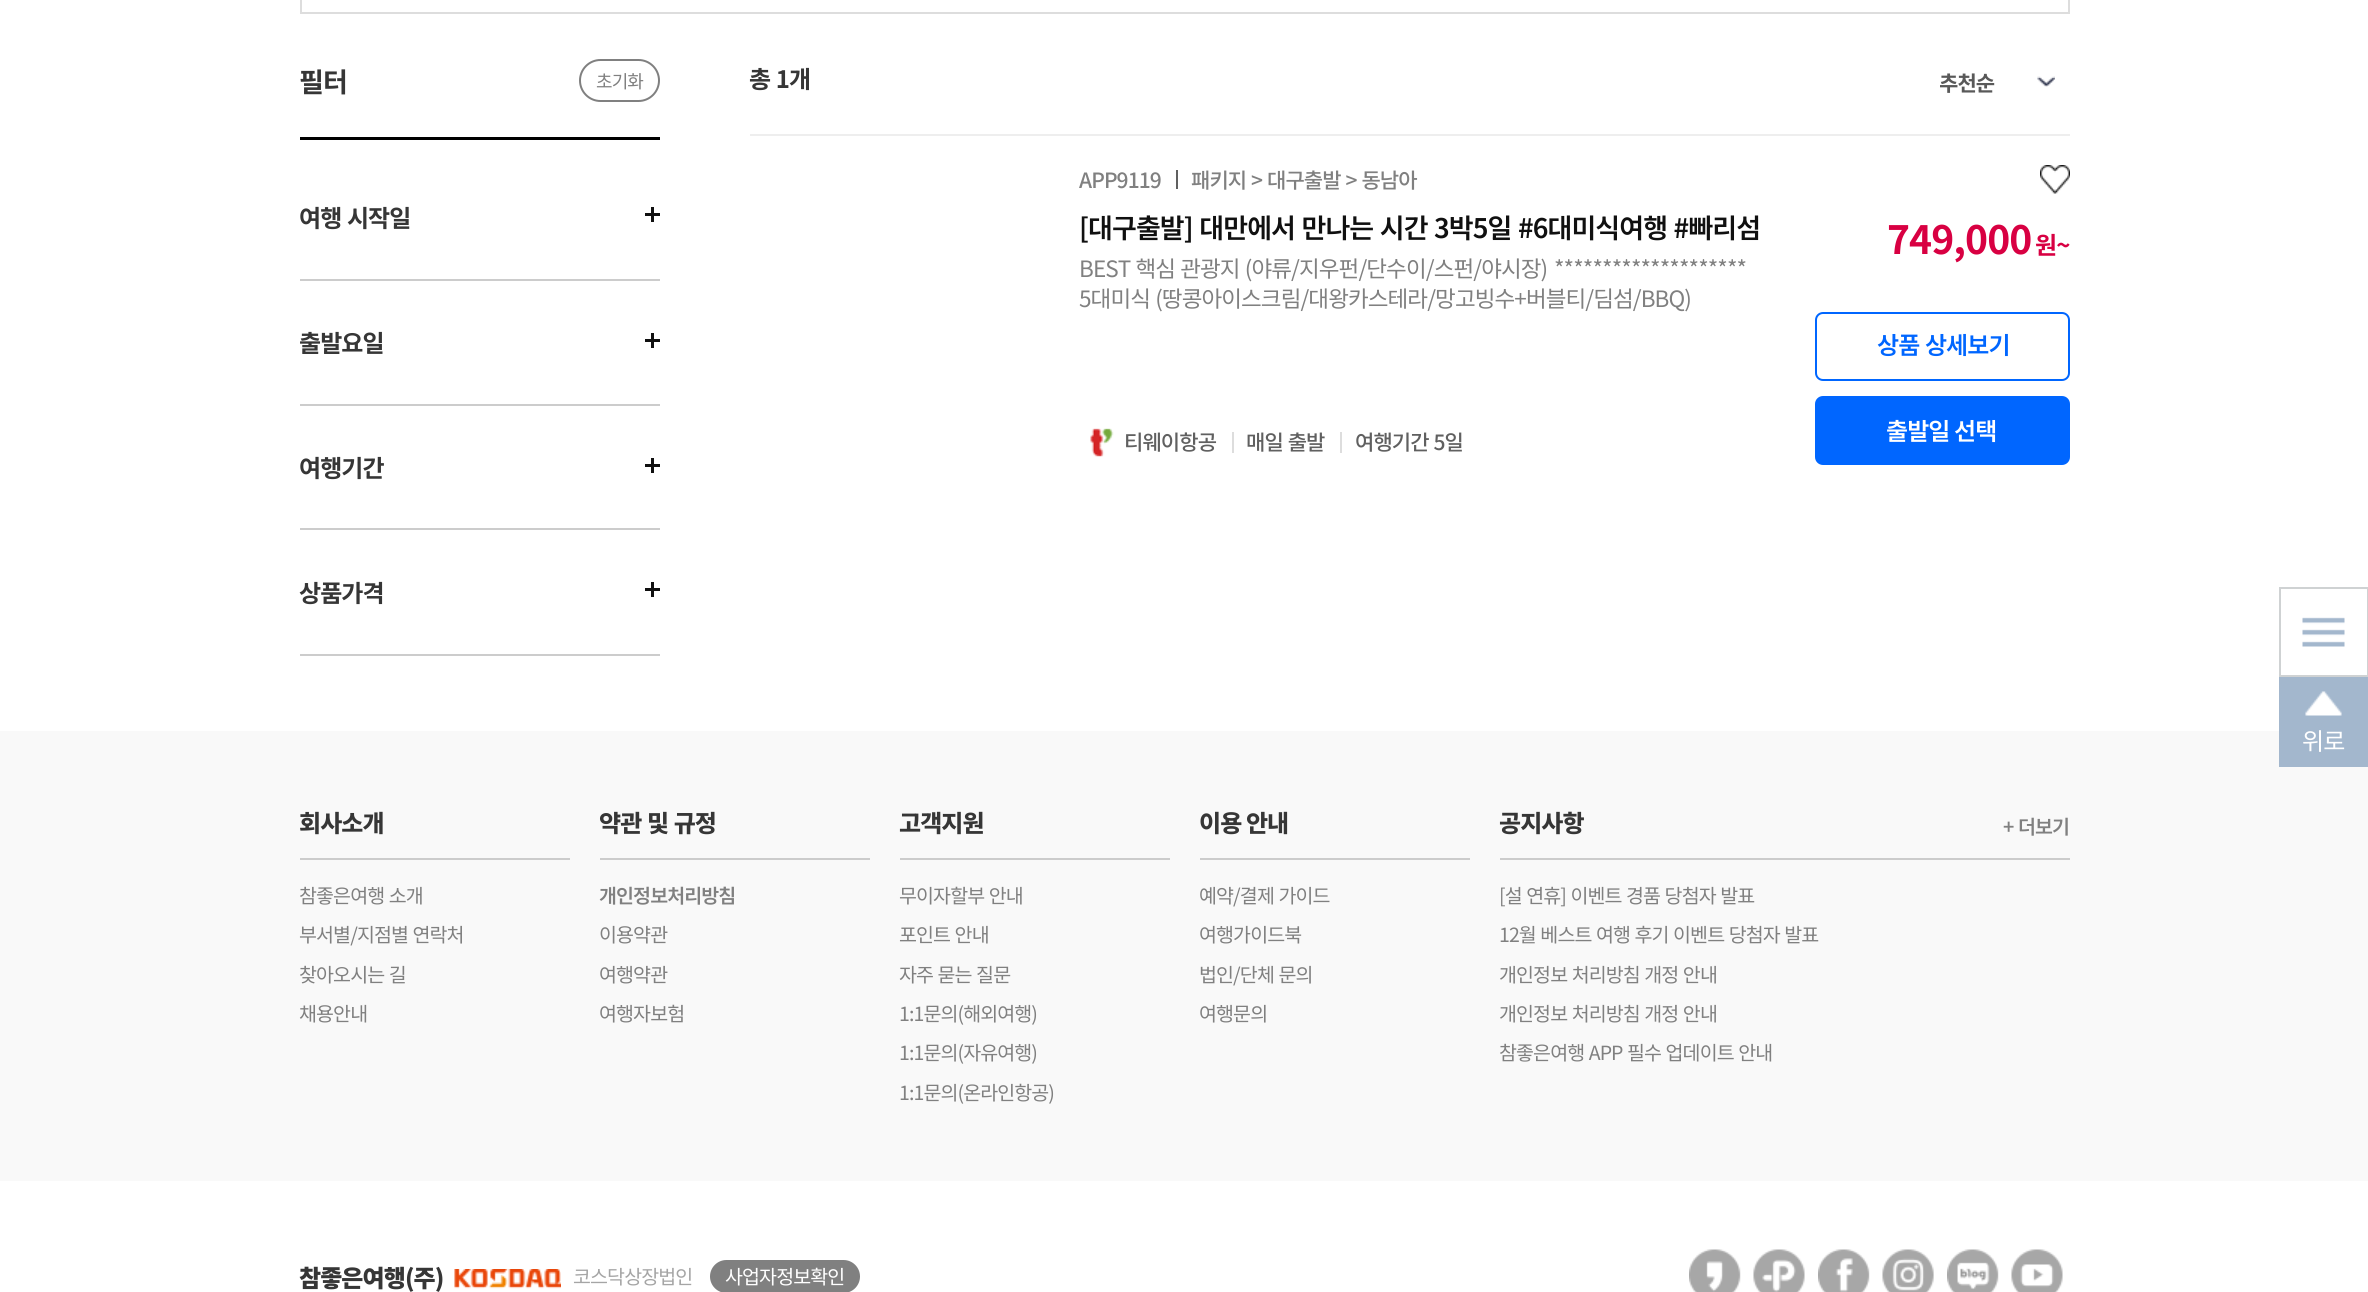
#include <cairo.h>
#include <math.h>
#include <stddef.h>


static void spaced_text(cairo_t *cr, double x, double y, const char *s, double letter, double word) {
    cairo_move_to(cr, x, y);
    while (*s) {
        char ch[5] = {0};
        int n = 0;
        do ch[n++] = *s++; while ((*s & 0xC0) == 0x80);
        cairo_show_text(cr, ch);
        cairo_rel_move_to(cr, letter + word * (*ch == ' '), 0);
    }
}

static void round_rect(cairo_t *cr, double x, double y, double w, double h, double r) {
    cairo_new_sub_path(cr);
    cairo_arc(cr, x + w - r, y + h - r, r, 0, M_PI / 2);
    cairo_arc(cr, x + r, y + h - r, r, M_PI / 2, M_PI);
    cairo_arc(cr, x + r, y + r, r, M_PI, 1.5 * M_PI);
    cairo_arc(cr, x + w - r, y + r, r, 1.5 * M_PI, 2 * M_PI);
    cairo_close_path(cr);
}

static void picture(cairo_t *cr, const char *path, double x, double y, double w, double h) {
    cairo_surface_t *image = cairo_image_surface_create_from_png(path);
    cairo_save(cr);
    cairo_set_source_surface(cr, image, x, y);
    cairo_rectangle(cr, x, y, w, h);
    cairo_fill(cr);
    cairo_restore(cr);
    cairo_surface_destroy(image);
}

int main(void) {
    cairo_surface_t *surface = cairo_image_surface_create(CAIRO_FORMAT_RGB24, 2368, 1292);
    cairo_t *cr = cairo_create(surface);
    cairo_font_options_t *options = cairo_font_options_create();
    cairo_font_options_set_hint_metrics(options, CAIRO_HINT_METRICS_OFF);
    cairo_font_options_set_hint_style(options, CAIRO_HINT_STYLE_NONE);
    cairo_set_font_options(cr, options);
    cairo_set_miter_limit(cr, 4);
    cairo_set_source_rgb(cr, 1, 1, 1);
    cairo_paint(cr);
    cairo_rectangle(cr, 301, -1, 1768, 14);
    cairo_set_source_rgb(cr, 0.867, 0.867, 0.867);
    cairo_stroke(cr);
    cairo_set_source_rgb(cr, 0, 0, 0);
    cairo_rectangle(cr, 300, 137, 360, 3);
    cairo_fill(cr);
    cairo_select_font_face(cr, "Noto Sans KR", CAIRO_FONT_SLANT_NORMAL, CAIRO_FONT_WEIGHT_BOLD);
    cairo_set_font_size(cr, 27);
    cairo_set_source_rgb(cr, 0.212, 0.212, 0.212);
    spaced_text(cr, 299, 92, "필터", -0.9, 0);
    round_rect(cr, 580, 60, 79, 41, 20.5);
    cairo_set_source_rgb(cr, 0.502, 0.502, 0.502);
    cairo_stroke(cr);
    cairo_select_font_face(cr, "Noto Sans KR", CAIRO_FONT_SLANT_NORMAL, CAIRO_FONT_WEIGHT_NORMAL);
    cairo_set_font_size(cr, 18);
    spaced_text(cr, 596, 88, "초기화", -0.9, 0);
    cairo_set_source_rgb(cr, 0.8, 0.8, 0.8);
    cairo_rectangle(cr, 300, 279, 360, 2);
    cairo_fill(cr);
    cairo_select_font_face(cr, "Noto Sans KR", CAIRO_FONT_SLANT_NORMAL, CAIRO_FONT_WEIGHT_BOLD);
    cairo_set_font_size(cr, 24);
    cairo_set_source_rgb(cr, 0.212, 0.212, 0.212);
    spaced_text(cr, 299, 227, "여행 시작일", -0.9, 1);
    cairo_set_source_rgb(cr, 0.063, 0.063, 0.063);
    cairo_rectangle(cr, 651, 207, 3, 15);
    cairo_fill(cr);
    cairo_rectangle(cr, 645, 213, 15, 3);
    cairo_fill(cr);
    cairo_set_source_rgb(cr, 0.8, 0.8, 0.8);
    cairo_rectangle(cr, 300, 404, 360, 2);
    cairo_fill(cr);
    cairo_set_source_rgb(cr, 0.212, 0.212, 0.212);
    spaced_text(cr, 299, 352, "출발요일", -0.9, 0);
    cairo_set_source_rgb(cr, 0.063, 0.063, 0.063);
    cairo_rectangle(cr, 651, 333, 3, 15);
    cairo_fill(cr);
    cairo_rectangle(cr, 645, 339, 15, 3);
    cairo_fill(cr);
    cairo_set_source_rgb(cr, 0.8, 0.8, 0.8);
    cairo_rectangle(cr, 300, 528, 360, 2);
    cairo_fill(cr);
    cairo_set_source_rgb(cr, 0.212, 0.212, 0.212);
    spaced_text(cr, 299, 477, "여행기간", -0.9, 0);
    cairo_set_source_rgb(cr, 0.063, 0.063, 0.063);
    cairo_rectangle(cr, 651, 458, 3, 15);
    cairo_fill(cr);
    cairo_rectangle(cr, 645, 464, 15, 3);
    cairo_fill(cr);
    cairo_set_source_rgb(cr, 0.8, 0.8, 0.8);
    cairo_rectangle(cr, 300, 654, 360, 2);
    cairo_fill(cr);
    cairo_set_source_rgb(cr, 0.212, 0.212, 0.212);
    spaced_text(cr, 299, 602, "상품가격", -0.9, 0);
    cairo_set_source_rgb(cr, 0.063, 0.063, 0.063);
    cairo_rectangle(cr, 651, 582, 3, 15);
    cairo_fill(cr);
    cairo_rectangle(cr, 645, 588, 15, 3);
    cairo_fill(cr);
    cairo_set_source_rgb(cr, 0.933, 0.933, 0.933);
    cairo_rectangle(cr, 750, 134, 1320, 2);
    cairo_fill(cr);
    cairo_set_source_rgb(cr, 0.212, 0.212, 0.212);
    spaced_text(cr, 749, 88, "총 1개", -0.9, 1);
    picture(cr, "img1.png", 2037, 76, 18, 11);
    cairo_save(cr);
    cairo_rectangle(cr, 1940, 66, 93, 30);
    cairo_clip(cr);
    cairo_set_font_size(cr, 21);
    cairo_set_source_rgb(cr, 0.349, 0.349, 0.349);
    spaced_text(cr, 1939, 91, "추천순", -0.9, 0);
    cairo_restore(cr);
    cairo_select_font_face(cr, "Noto Sans KR Medium", CAIRO_FONT_SLANT_NORMAL, CAIRO_FONT_WEIGHT_NORMAL);
    cairo_set_font_size(cr, 21);
    cairo_set_source_rgb(cr, 0.502, 0.502, 0.502);
    spaced_text(cr, 1079, 188, "APP9119", -0.9, 0);
    cairo_set_source_rgb(cr, 0.376, 0.376, 0.376);
    cairo_rectangle(cr, 1176, 170, 2, 19);
    cairo_fill(cr);
    cairo_set_source_rgb(cr, 0.502, 0.502, 0.502);
    spaced_text(cr, 1191, 188, "패키지 > 대구출발 > 동남아", -0.9, 1);
    picture(cr, "img2.png", 2040, 165, 30, 29);
    cairo_select_font_face(cr, "Noto Sans KR SemiBold", CAIRO_FONT_SLANT_NORMAL, CAIRO_FONT_WEIGHT_NORMAL);
    cairo_set_font_size(cr, 27);
    cairo_set_source_rgb(cr, 0.063, 0.063, 0.063);
    spaced_text(cr, 1079, 238, "[대구출발] 대만에서 만나는 시간 3박5일 #6대미식여행 #빠리섬", -0.9, 1.25);
    cairo_select_font_face(cr, "Noto Sans KR", CAIRO_FONT_SLANT_NORMAL, CAIRO_FONT_WEIGHT_NORMAL);
    cairo_set_font_size(cr, 22.5);
    cairo_set_source_rgb(cr, 0.502, 0.502, 0.502);
    spaced_text(cr, 1079, 277, "BEST 핵심 관광지 (야류/지우펀/단수이/스펀/야시장)", -0.9, 1);
    spaced_text(cr, 1554, 277, "********************", -0.9, 0);
    spaced_text(cr, 1079, 307, "5대미식 (땅콩아이스크림/대왕카스테라/망고빙수+버블티/딤섬/BBQ)", -0.9, 1);
    picture(cr, "img3.png", 1090, 428, 24, 29);
    cairo_select_font_face(cr, "Noto Sans KR Medium", CAIRO_FONT_SLANT_NORMAL, CAIRO_FONT_WEIGHT_NORMAL);
    cairo_set_font_size(cr, 21);
    cairo_set_source_rgb(cr, 0.376, 0.376, 0.376);
    spaced_text(cr, 1124, 450, "티웨이항공", -0.9, 0);
    cairo_set_source_rgb(cr, 0.867, 0.867, 0.867);
    cairo_rectangle(cr, 1232, 432, 2, 21);
    cairo_fill(cr);
    cairo_set_source_rgb(cr, 0.376, 0.376, 0.376);
    spaced_text(cr, 1246, 450, "매일 출발", -0.9, 1);
    cairo_set_source_rgb(cr, 0.867, 0.867, 0.867);
    cairo_rectangle(cr, 1340, 432, 2, 21);
    cairo_fill(cr);
    cairo_set_source_rgb(cr, 0.376, 0.376, 0.376);
    spaced_text(cr, 1355, 450, "여행기간 5일", -0.9, 1);
    cairo_select_font_face(cr, "Noto Sans KR", CAIRO_FONT_SLANT_NORMAL, CAIRO_FONT_WEIGHT_BOLD);
    cairo_set_font_size(cr, 39);
    cairo_set_source_rgb(cr, 0.847, 0, 0.259);
    spaced_text(cr, 1887, 254, "749,000", -0.9, 0);
    cairo_set_font_size(cr, 24);
    spaced_text(cr, 2035, 254, "원~", -0.9, 0);
    round_rect(cr, 1816, 313, 253, 67, 7);
    cairo_set_source_rgb(cr, 0, 0.4, 1);
    cairo_stroke(cr);
    cairo_select_font_face(cr, "Noto Sans KR SemiBold", CAIRO_FONT_SLANT_NORMAL, CAIRO_FONT_WEIGHT_NORMAL);
    spaced_text(cr, 1877, 354, "상품 상세보기", -0.9, 1);
    round_rect(cr, 1815, 396, 255, 69, 8);
    cairo_fill(cr);
    cairo_set_source_rgb(cr, 1, 1, 1);
    spaced_text(cr, 1886, 440, "출발일 선택", -0.9, 0);
    picture(cr, "img4.png", 2302, 617, 43, 30);
    cairo_rectangle(cr, 2280, 588, 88, 88);
    cairo_set_source_rgb(cr, 0.812, 0.824, 0.827);
    cairo_stroke(cr);
    cairo_set_source_rgb(cr, 0.973, 0.973, 0.973);
    cairo_rectangle(cr, 0, 731, 2368, 450);
    cairo_fill(cr);
    cairo_set_source_rgb(cr, 0.639, 0.718, 0.804);
    cairo_rectangle(cr, 2279, 677, 89, 90);
    cairo_fill(cr);
    picture(cr, "img5.png", 2305, 691, 37, 25);
    cairo_select_font_face(cr, "Noto Sans KR", CAIRO_FONT_SLANT_NORMAL, CAIRO_FONT_WEIGHT_NORMAL);
    cairo_set_source_rgb(cr, 1, 1, 1);
    spaced_text(cr, 2302, 750, "위로", -0.9, 0);
    cairo_set_source_rgb(cr, 0.8, 0.8, 0.8);
    cairo_rectangle(cr, 300, 858, 270, 2);
    cairo_fill(cr);
    cairo_select_font_face(cr, "Noto Sans KR ExtraBold", CAIRO_FONT_SLANT_NORMAL, CAIRO_FONT_WEIGHT_NORMAL);
    cairo_set_source_rgb(cr, 0.212, 0.212, 0.212);
    spaced_text(cr, 299, 832, "회사소개", -0.9, 0);
    cairo_select_font_face(cr, "Noto Sans KR", CAIRO_FONT_SLANT_NORMAL, CAIRO_FONT_WEIGHT_NORMAL);
    cairo_set_font_size(cr, 19.5);
    cairo_set_source_rgb(cr, 0.502, 0.502, 0.502);
    spaced_text(cr, 299, 903, "참좋은여행 소개", -0.9, 1);
    spaced_text(cr, 299, 942, "부서별/지점별 연락처", -0.9, 1);
    spaced_text(cr, 299, 982, "찾아오시는 길", -0.9, 1);
    spaced_text(cr, 299, 1021, "채용안내", -0.9, 0);
    cairo_set_source_rgb(cr, 0.8, 0.8, 0.8);
    cairo_rectangle(cr, 600, 858, 270, 2);
    cairo_fill(cr);
    cairo_select_font_face(cr, "Noto Sans KR ExtraBold", CAIRO_FONT_SLANT_NORMAL, CAIRO_FONT_WEIGHT_NORMAL);
    cairo_set_font_size(cr, 24);
    cairo_set_source_rgb(cr, 0.212, 0.212, 0.212);
    spaced_text(cr, 599, 832, "약관 및 규정", -0.9, 1);
    cairo_select_font_face(cr, "Noto Sans KR SemiBold", CAIRO_FONT_SLANT_NORMAL, CAIRO_FONT_WEIGHT_NORMAL);
    cairo_set_font_size(cr, 19.5);
    cairo_set_source_rgb(cr, 0.502, 0.502, 0.502);
    spaced_text(cr, 599, 903, "개인정보처리방침", -0.9, 0);
    cairo_select_font_face(cr, "Noto Sans KR", CAIRO_FONT_SLANT_NORMAL, CAIRO_FONT_WEIGHT_NORMAL);
    spaced_text(cr, 599, 942, "이용약관", -0.9, 0);
    spaced_text(cr, 599, 982, "여행약관", -0.9, 0);
    spaced_text(cr, 599, 1021, "여행자보험", -0.9, 0);
    cairo_set_source_rgb(cr, 0.8, 0.8, 0.8);
    cairo_rectangle(cr, 900, 858, 270, 2);
    cairo_fill(cr);
    cairo_select_font_face(cr, "Noto Sans KR ExtraBold", CAIRO_FONT_SLANT_NORMAL, CAIRO_FONT_WEIGHT_NORMAL);
    cairo_set_font_size(cr, 24);
    cairo_set_source_rgb(cr, 0.212, 0.212, 0.212);
    spaced_text(cr, 899, 832, "고객지원", -0.9, 0);
    cairo_select_font_face(cr, "Noto Sans KR", CAIRO_FONT_SLANT_NORMAL, CAIRO_FONT_WEIGHT_NORMAL);
    cairo_set_font_size(cr, 19.5);
    cairo_set_source_rgb(cr, 0.502, 0.502, 0.502);
    spaced_text(cr, 899, 903, "무이자할부 안내", -0.9, 1);
    spaced_text(cr, 899, 942, "포인트 안내", -0.9, 1);
    spaced_text(cr, 899, 982, "자주 묻는 질문", -0.9, 1);
    spaced_text(cr, 899, 1021, "1:1문의(해외여행)", -0.9, 0);
    spaced_text(cr, 899, 1060, "1:1문의(자유여행)", -0.9, 0);
    spaced_text(cr, 899, 1100, "1:1문의(온라인항공)", -0.9, 0);
    cairo_set_source_rgb(cr, 0.8, 0.8, 0.8);
    cairo_rectangle(cr, 1200, 858, 270, 2);
    cairo_fill(cr);
    cairo_select_font_face(cr, "Noto Sans KR ExtraBold", CAIRO_FONT_SLANT_NORMAL, CAIRO_FONT_WEIGHT_NORMAL);
    cairo_set_font_size(cr, 24);
    cairo_set_source_rgb(cr, 0.212, 0.212, 0.212);
    spaced_text(cr, 1199, 832, "이용 안내", -0.9, 0);
    cairo_select_font_face(cr, "Noto Sans KR", CAIRO_FONT_SLANT_NORMAL, CAIRO_FONT_WEIGHT_NORMAL);
    cairo_set_font_size(cr, 19.5);
    cairo_set_source_rgb(cr, 0.502, 0.502, 0.502);
    spaced_text(cr, 1199, 903, "예약/결제 가이드", -0.9, 1);
    spaced_text(cr, 1199, 942, "여행가이드북", -0.9, 0);
    spaced_text(cr, 1199, 982, "법인/단체 문의", -0.9, 1);
    spaced_text(cr, 1199, 1021, "여행문의", -0.9, 0);
    cairo_set_source_rgb(cr, 0.8, 0.8, 0.8);
    cairo_rectangle(cr, 1500, 858, 570, 2);
    cairo_fill(cr);
    cairo_select_font_face(cr, "Noto Sans KR ExtraBold", CAIRO_FONT_SLANT_NORMAL, CAIRO_FONT_WEIGHT_NORMAL);
    cairo_set_font_size(cr, 24);
    cairo_set_source_rgb(cr, 0.212, 0.212, 0.212);
    spaced_text(cr, 1499, 832, "공지사항", -0.9, 0);
    cairo_select_font_face(cr, "Noto Sans KR SemiBold", CAIRO_FONT_SLANT_NORMAL, CAIRO_FONT_WEIGHT_NORMAL);
    cairo_set_font_size(cr, 19.5);
    cairo_set_source_rgb(cr, 0.502, 0.502, 0.502);
    spaced_text(cr, 2003, 834, "+ 더보기", -0.9, 1);
    cairo_select_font_face(cr, "Noto Sans KR", CAIRO_FONT_SLANT_NORMAL, CAIRO_FONT_WEIGHT_NORMAL);
    spaced_text(cr, 1499, 903, "[설 연휴] 이벤트 경품 당첨자 발표", -0.9, 1);
    spaced_text(cr, 1499, 942, "12월 베스트 여행 후기 이벤트 당첨자 발표", -0.9, 1);
    spaced_text(cr, 1499, 982, "개인정보 처리방침 개정 안내", -0.9, 1);
    spaced_text(cr, 1499, 1021, "개인정보 처리방침 개정 안내", -0.9, 1);
    spaced_text(cr, 1499, 1060, "참좋은여행 APP 필수 업데이트 안내", -0.9, 1);
    cairo_select_font_face(cr, "Noto Sans KR Black", CAIRO_FONT_SLANT_NORMAL, CAIRO_FONT_WEIGHT_NORMAL);
    cairo_set_font_size(cr, 24);
    cairo_set_source_rgb(cr, 0.212, 0.212, 0.212);
    spaced_text(cr, 299, 1287, "참좋은여행(주)", -0.9, 0);
    picture(cr, "img6.png", 454, 1269, 107, 20);
    cairo_select_font_face(cr, "Noto Sans KR", CAIRO_FONT_SLANT_NORMAL, CAIRO_FONT_WEIGHT_NORMAL);
    cairo_set_font_size(cr, 19.5);
    cairo_set_source_rgb(cr, 0.647, 0.647, 0.647);
    spaced_text(cr, 573, 1284, "코스닥상장법인", -0.9, 0);
    cairo_set_source_rgb(cr, 0.502, 0.502, 0.502);
    round_rect(cr, 710, 1260, 150, 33, 16.5);
    cairo_fill(cr);
    cairo_set_source_rgb(cr, 1, 1, 1);
    spaced_text(cr, 725, 1284, "사업자정보확인", -0.9, 0);
    picture(cr, "img7.png", 1689, 1249, 52, 43);
    picture(cr, "img8.png", 1753, 1249, 52, 43);
    picture(cr, "img9.png", 1818, 1249, 52, 43);
    picture(cr, "img10.png", 1882, 1249, 52, 43);
    picture(cr, "img11.png", 1947, 1249, 52, 43);
    picture(cr, "img12.png", 2011, 1249, 52, 43);
    cairo_surface_write_to_png(surface, "page.png");
    cairo_font_options_destroy(options);
    cairo_destroy(cr);
    cairo_surface_destroy(surface);
    return 0;
}
